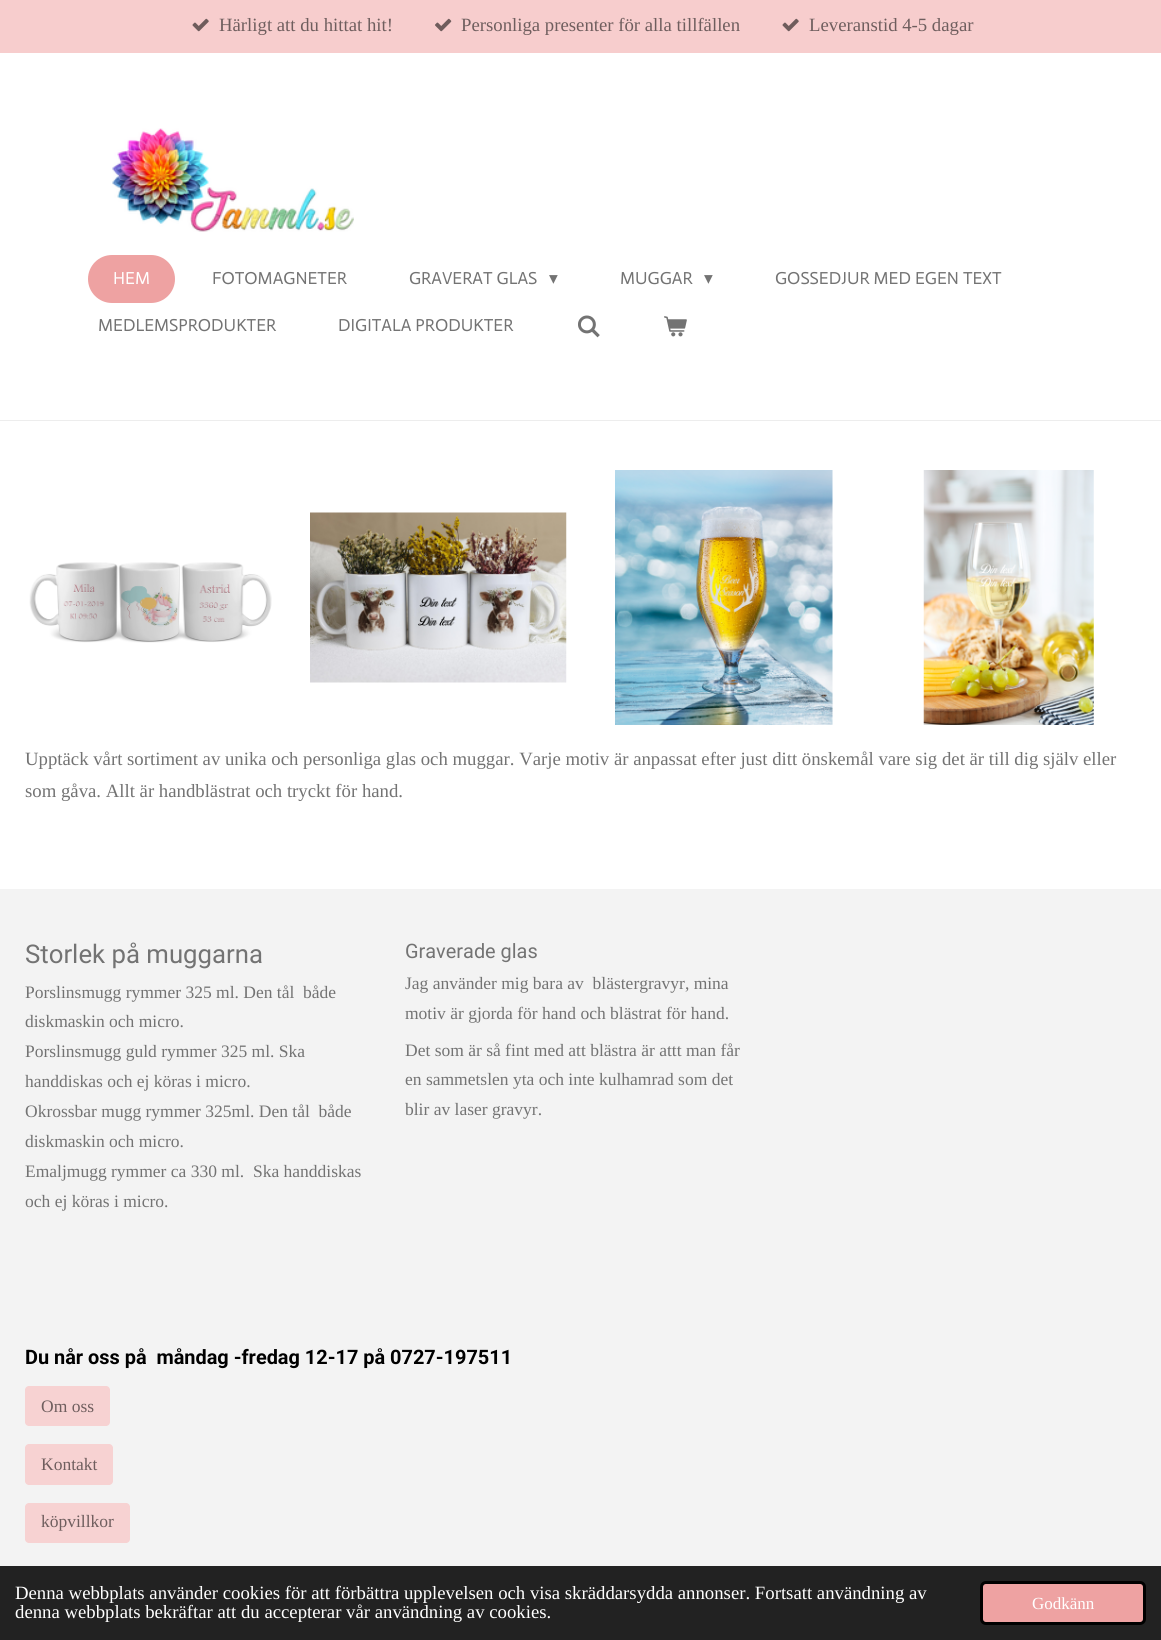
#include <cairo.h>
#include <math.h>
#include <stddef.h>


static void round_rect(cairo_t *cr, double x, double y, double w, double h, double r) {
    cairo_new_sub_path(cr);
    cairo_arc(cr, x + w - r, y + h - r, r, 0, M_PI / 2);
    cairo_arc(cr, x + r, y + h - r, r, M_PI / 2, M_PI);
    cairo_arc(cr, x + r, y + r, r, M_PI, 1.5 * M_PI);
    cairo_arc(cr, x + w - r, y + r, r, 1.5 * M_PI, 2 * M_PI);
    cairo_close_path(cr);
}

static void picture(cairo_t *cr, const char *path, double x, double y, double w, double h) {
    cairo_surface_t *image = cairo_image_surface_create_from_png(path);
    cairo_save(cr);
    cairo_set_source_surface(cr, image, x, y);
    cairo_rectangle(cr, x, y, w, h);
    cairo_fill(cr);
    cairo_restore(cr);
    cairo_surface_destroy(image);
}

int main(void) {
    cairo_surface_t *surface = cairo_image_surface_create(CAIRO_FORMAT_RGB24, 1161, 1640);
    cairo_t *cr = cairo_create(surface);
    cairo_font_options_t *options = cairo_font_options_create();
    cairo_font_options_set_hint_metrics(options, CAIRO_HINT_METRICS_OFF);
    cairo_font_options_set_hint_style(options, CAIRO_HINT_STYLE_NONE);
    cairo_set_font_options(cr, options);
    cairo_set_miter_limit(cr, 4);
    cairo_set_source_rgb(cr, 1, 1, 1);
    cairo_paint(cr);
    cairo_set_source_rgb(cr, 0.965, 0.804, 0.804);
    cairo_rectangle(cr, 0, 0, 1161, 53);
    cairo_fill(cr);
    picture(cr, "img1.png", 192, 18, 17, 14);
    cairo_select_font_face(cr, "Liberation Serif", CAIRO_FONT_SLANT_NORMAL, CAIRO_FONT_WEIGHT_NORMAL);
    cairo_set_font_size(cr, 18.75);
    cairo_set_source_rgb(cr, 0.435, 0.369, 0.369);
    cairo_move_to(cr, 219, 31);
    cairo_show_text(cr, "Härligt att du hittat hit!");
    picture(cr, "img2.png", 435, 18, 17, 14);
    cairo_move_to(cr, 461, 31);
    cairo_show_text(cr, "Personliga presenter för alla tillfällen");
    picture(cr, "img1.png", 782, 18, 17, 14);
    cairo_move_to(cr, 809, 31);
    cairo_show_text(cr, "Leveranstid 4-5 dagar");
    cairo_set_source_rgb(cr, 0.929, 0.929, 0.929);
    cairo_rectangle(cr, 0, 420, 1161, 1);
    cairo_fill(cr);
    picture(cr, "img3.png", 112, 128, 242, 104);
    cairo_set_source_rgb(cr, 0.933, 0.635, 0.635);
    round_rect(cr, 88, 255, 87, 48, 24);
    cairo_fill(cr);
    cairo_select_font_face(cr, "Actor", CAIRO_FONT_SLANT_NORMAL, CAIRO_FONT_WEIGHT_NORMAL);
    cairo_set_font_size(cr, 17.5);
    cairo_set_source_rgb(cr, 1, 1, 1);
    cairo_move_to(cr, 113, 284);
    cairo_show_text(cr, "HEM");
    cairo_set_source_rgb(cr, 0.451, 0.451, 0.451);
    cairo_move_to(cr, 212, 284);
    cairo_show_text(cr, "FOTOMAGNETER");
    cairo_move_to(cr, 409, 284);
    cairo_show_text(cr, "GRAVERAT GLAS");
    cairo_select_font_face(cr, "DejaVu Sans", CAIRO_FONT_SLANT_NORMAL, CAIRO_FONT_WEIGHT_NORMAL);
    cairo_move_to(cr, 549, 284);
    cairo_show_text(cr, "▾");
    cairo_select_font_face(cr, "Actor", CAIRO_FONT_SLANT_NORMAL, CAIRO_FONT_WEIGHT_NORMAL);
    cairo_move_to(cr, 620, 284);
    cairo_show_text(cr, "MUGGAR");
    cairo_select_font_face(cr, "DejaVu Sans", CAIRO_FONT_SLANT_NORMAL, CAIRO_FONT_WEIGHT_NORMAL);
    cairo_move_to(cr, 704, 284);
    cairo_show_text(cr, "▾");
    cairo_select_font_face(cr, "Actor", CAIRO_FONT_SLANT_NORMAL, CAIRO_FONT_WEIGHT_NORMAL);
    cairo_move_to(cr, 775, 284);
    cairo_show_text(cr, "GOSSEDJUR MED EGEN TEXT");
    cairo_move_to(cr, 98, 331);
    cairo_show_text(cr, "MEDLEMSPRODUKTER");
    cairo_move_to(cr, 338, 331);
    cairo_show_text(cr, "DIGITALA PRODUKTER");
    picture(cr, "img4.png", 578, 315, 22, 23);
    picture(cr, "img5.png", 664, 316, 23, 21);
    picture(cr, "img6.png", 29, 562, 243, 81);
    picture(cr, "img7.png", 310, 512, 257, 171);
    picture(cr, "img8.png", 615, 470, 218, 255);
    picture(cr, "img9.png", 923, 470, 171, 255);
    cairo_select_font_face(cr, "Liberation Serif", CAIRO_FONT_SLANT_NORMAL, CAIRO_FONT_WEIGHT_NORMAL);
    cairo_set_font_size(cr, 18.75);
    cairo_move_to(cr, 25, 765);
    cairo_show_text(cr, "Upptäck vårt sortiment av unika och personliga glas och muggar. Varje motiv är anpassat efter just ditt önskemål vare sig det är till dig själv eller");
    cairo_move_to(cr, 25, 797);
    cairo_show_text(cr, "som gåva. Allt är handblästrat och tryckt för hand.");
    cairo_set_source_rgb(cr, 0.953, 0.953, 0.953);
    cairo_rectangle(cr, 0, 889, 1161, 677);
    cairo_fill(cr);
    cairo_select_font_face(cr, "Roboto", CAIRO_FONT_SLANT_NORMAL, CAIRO_FONT_WEIGHT_NORMAL);
    cairo_set_font_size(cr, 25.75);
    cairo_set_source_rgb(cr, 0.451, 0.451, 0.451);
    cairo_move_to(cr, 25, 963);
    cairo_show_text(cr, "Storlek på muggarna");
    cairo_select_font_face(cr, "Liberation Serif", CAIRO_FONT_SLANT_NORMAL, CAIRO_FONT_WEIGHT_NORMAL);
    cairo_set_font_size(cr, 17.5);
    cairo_move_to(cr, 25, 998);
    cairo_show_text(cr, "Porslinsmugg rymmer 325 ml. Den tål  både");
    cairo_move_to(cr, 25, 1027);
    cairo_show_text(cr, "diskmaskin och micro.");
    cairo_move_to(cr, 25, 1057);
    cairo_show_text(cr, "Porslinsmugg guld rymmer 325 ml. Ska");
    cairo_move_to(cr, 25, 1087);
    cairo_show_text(cr, "handdiskas och ej köras i micro.");
    cairo_move_to(cr, 25, 1117);
    cairo_show_text(cr, "Okrossbar mugg rymmer 325ml. Den tål  både");
    cairo_move_to(cr, 25, 1147);
    cairo_show_text(cr, "diskmaskin och micro.");
    cairo_move_to(cr, 25, 1177);
    cairo_show_text(cr, "Emaljmugg rymmer ca 330 ml.  Ska handdiskas");
    cairo_move_to(cr, 25, 1207);
    cairo_show_text(cr, "och ej köras i micro.");
    cairo_select_font_face(cr, "Roboto", CAIRO_FONT_SLANT_NORMAL, CAIRO_FONT_WEIGHT_NORMAL);
    cairo_set_font_size(cr, 19.9);
    cairo_move_to(cr, 405, 958);
    cairo_show_text(cr, "Graverade glas");
    cairo_select_font_face(cr, "Liberation Serif", CAIRO_FONT_SLANT_NORMAL, CAIRO_FONT_WEIGHT_NORMAL);
    cairo_set_font_size(cr, 17.5);
    cairo_move_to(cr, 405, 989);
    cairo_show_text(cr, "Jag använder mig bara av  blästergravyr, mina");
    cairo_move_to(cr, 405, 1019);
    cairo_show_text(cr, "motiv är gjorda för hand och blästrat för hand.");
    cairo_move_to(cr, 405, 1056);
    cairo_show_text(cr, "Det som är så fint med att blästra är attt man får");
    cairo_move_to(cr, 405, 1085);
    cairo_show_text(cr, "en sammetslen yta och inte kulhamrad som det");
    cairo_move_to(cr, 405, 1115);
    cairo_show_text(cr, "blir av laser gravyr.");
    cairo_select_font_face(cr, "Roboto", CAIRO_FONT_SLANT_NORMAL, CAIRO_FONT_WEIGHT_BOLD);
    cairo_set_font_size(cr, 19.9);
    cairo_set_source_rgb(cr, 0, 0, 0);
    cairo_move_to(cr, 25, 1364);
    cairo_show_text(cr, "Du når oss på  måndag -fredag 12-17 på 0727-197511");
    cairo_set_source_rgb(cr, 0.965, 0.824, 0.824);
    round_rect(cr, 25, 1386, 85, 40, 4);
    cairo_fill(cr);
    cairo_select_font_face(cr, "Liberation Serif", CAIRO_FONT_SLANT_NORMAL, CAIRO_FONT_WEIGHT_NORMAL);
    cairo_set_font_size(cr, 17.5);
    cairo_set_source_rgb(cr, 0.435, 0.369, 0.369);
    cairo_move_to(cr, 41, 1412);
    cairo_show_text(cr, "Om oss");
    cairo_set_source_rgb(cr, 0.965, 0.824, 0.824);
    round_rect(cr, 25, 1444, 88, 41, 4);
    cairo_fill(cr);
    cairo_set_source_rgb(cr, 0.435, 0.369, 0.369);
    cairo_move_to(cr, 41, 1470);
    cairo_show_text(cr, "Kontakt");
    cairo_set_source_rgb(cr, 0.965, 0.824, 0.824);
    round_rect(cr, 25, 1503, 105, 40, 4);
    cairo_fill(cr);
    cairo_set_source_rgb(cr, 0.435, 0.369, 0.369);
    cairo_move_to(cr, 41, 1527);
    cairo_show_text(cr, "köpvillkor");
    cairo_set_source_rgb(cr, 0.133, 0.133, 0.133);
    cairo_rectangle(cr, 0, 1566, 1161, 74);
    cairo_fill(cr);
    cairo_set_font_size(cr, 18.75);
    cairo_set_source_rgb(cr, 1, 1, 1);
    cairo_move_to(cr, 15, 1599);
    cairo_show_text(cr, "Denna webbplats använder cookies för att förbättra upplevelsen och visa skräddarsydda annonser. Fortsatt användning av");
    cairo_move_to(cr, 15, 1618);
    cairo_show_text(cr, "denna webbplats bekräftar att du accepterar vår användning av cookies.");
    cairo_set_source_rgb(cr, 0.933, 0.635, 0.635);
    round_rect(cr, 981.5, 1582.5, 163, 41, 4.5);
    cairo_fill_preserve(cr);
    cairo_set_source_rgb(cr, 0, 0, 0);
    cairo_set_line_width(cr, 3);
    cairo_stroke(cr);
    cairo_set_font_size(cr, 17);
    cairo_set_source_rgb(cr, 1, 1, 1);
    cairo_move_to(cr, 1032, 1609);
    cairo_show_text(cr, "Godkänn");
    cairo_surface_write_to_png(surface, "page.png");
    cairo_font_options_destroy(options);
    cairo_destroy(cr);
    cairo_surface_destroy(surface);
    return 0;
}
